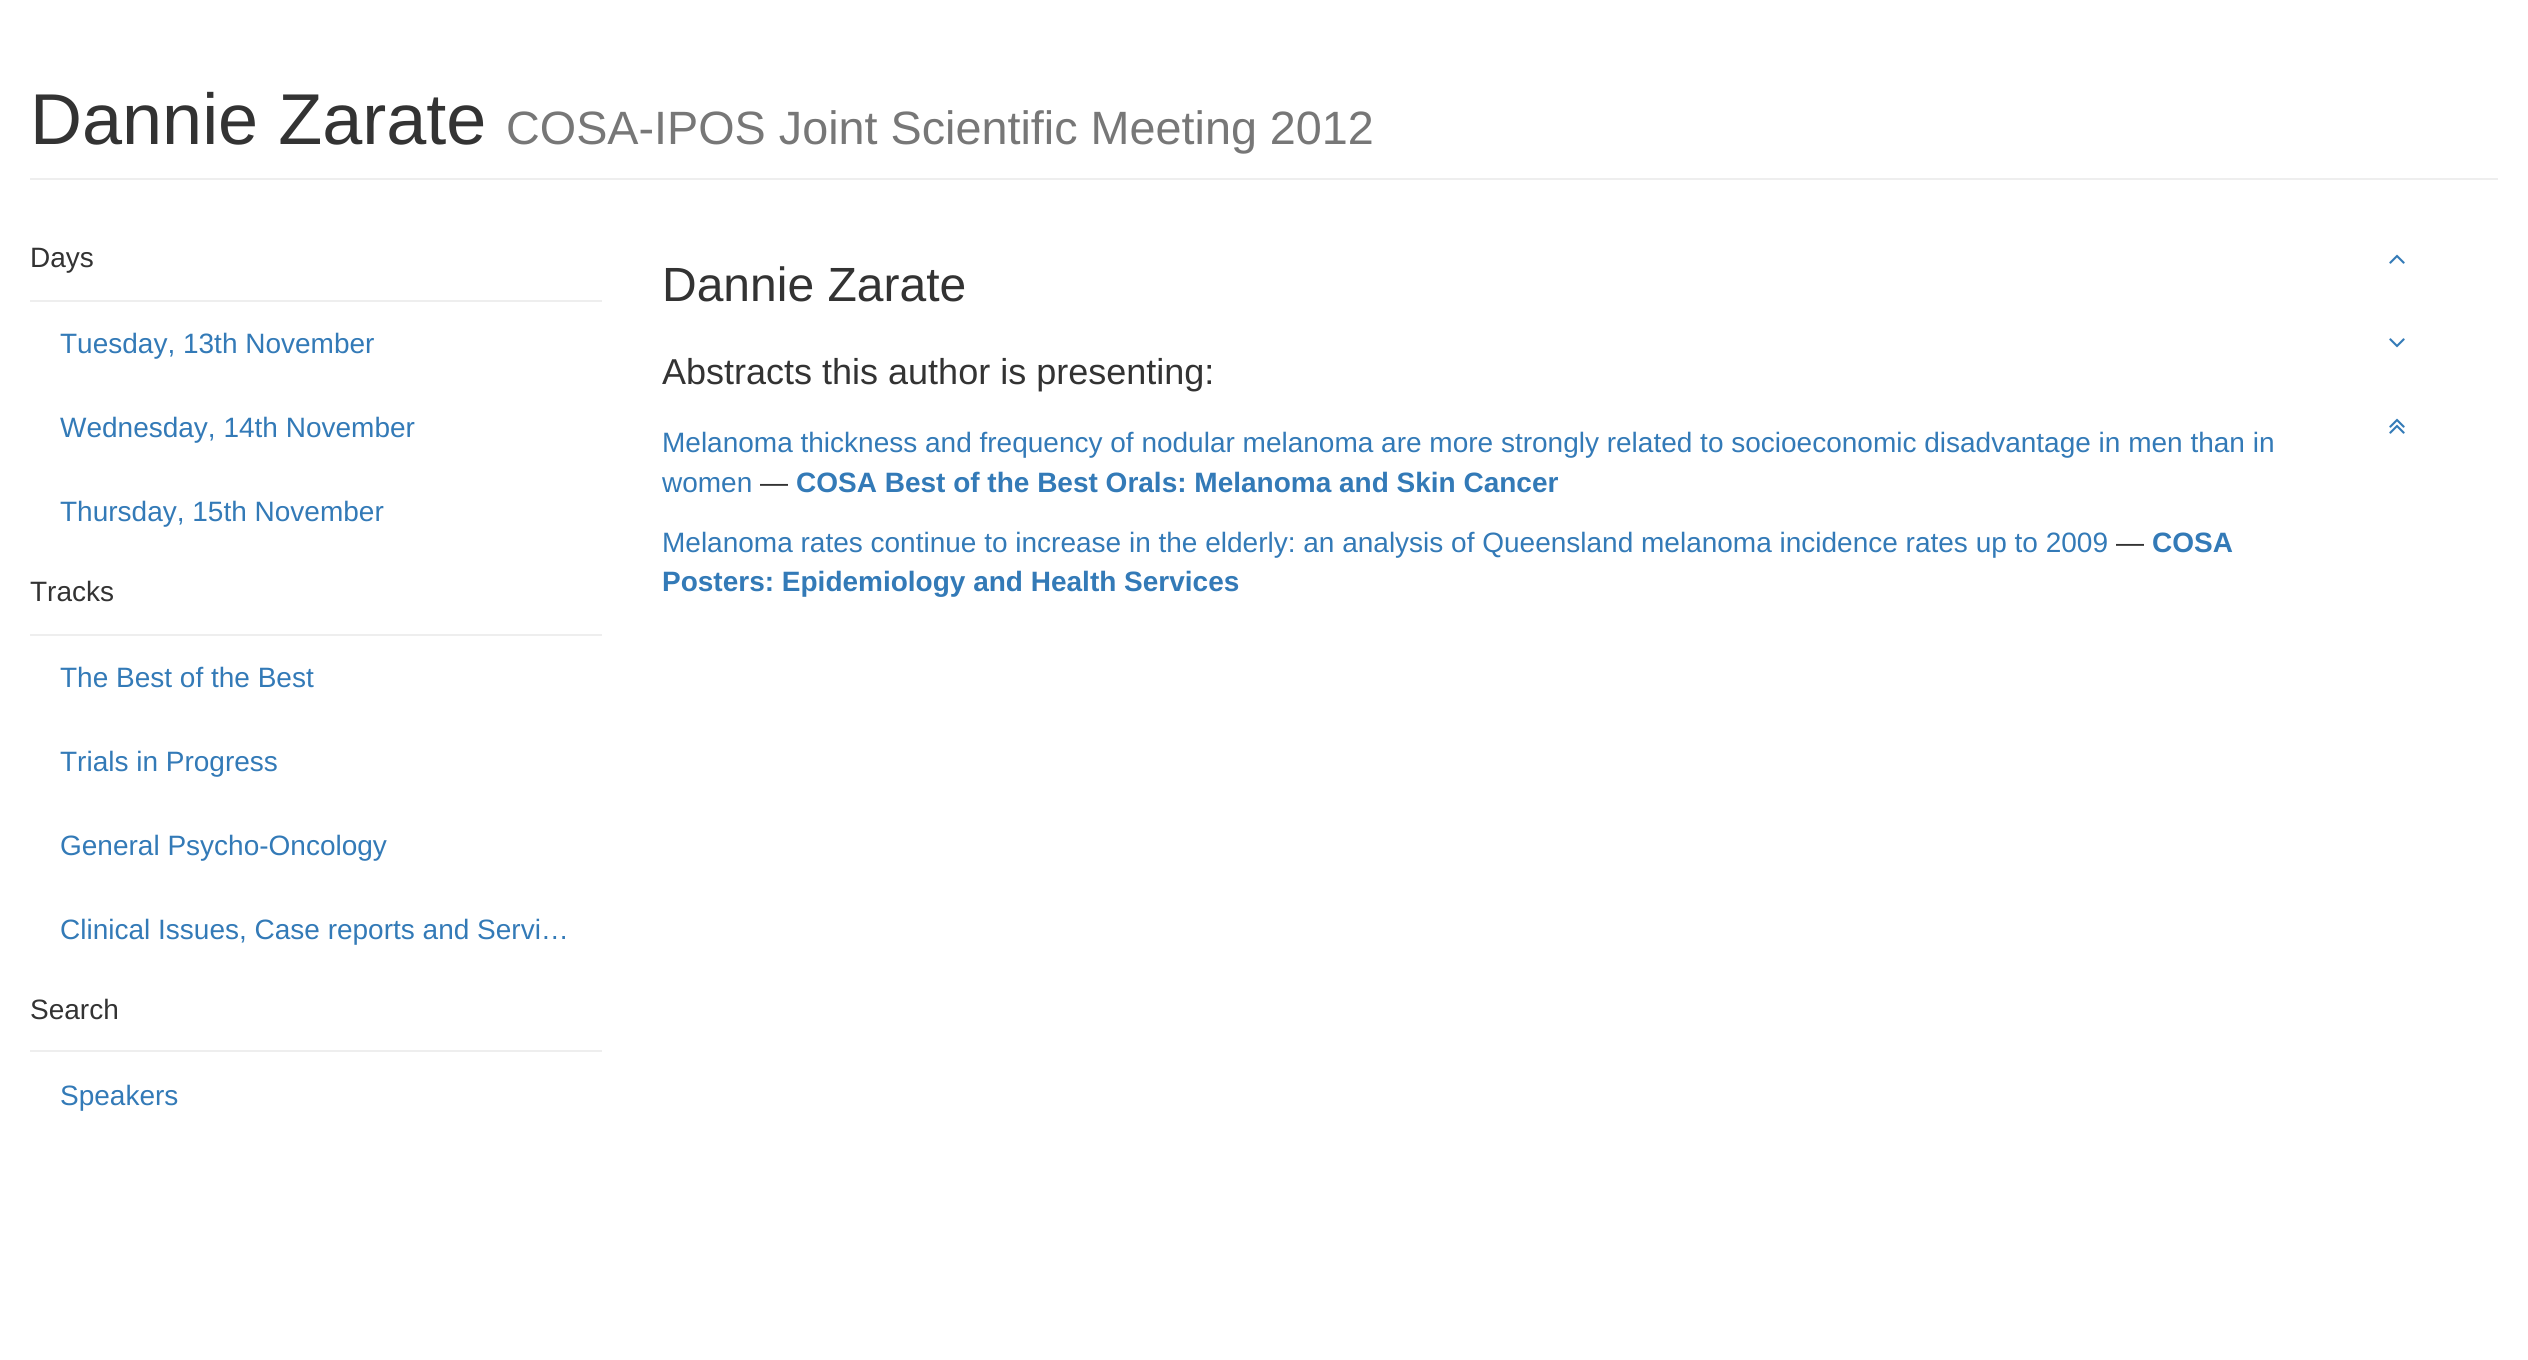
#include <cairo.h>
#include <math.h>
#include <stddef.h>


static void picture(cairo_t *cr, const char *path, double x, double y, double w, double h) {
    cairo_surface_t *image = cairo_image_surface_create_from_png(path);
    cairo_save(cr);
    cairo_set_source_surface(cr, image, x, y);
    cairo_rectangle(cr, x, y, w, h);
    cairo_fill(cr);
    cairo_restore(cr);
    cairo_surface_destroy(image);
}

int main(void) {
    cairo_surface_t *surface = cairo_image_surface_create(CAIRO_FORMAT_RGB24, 2528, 1360);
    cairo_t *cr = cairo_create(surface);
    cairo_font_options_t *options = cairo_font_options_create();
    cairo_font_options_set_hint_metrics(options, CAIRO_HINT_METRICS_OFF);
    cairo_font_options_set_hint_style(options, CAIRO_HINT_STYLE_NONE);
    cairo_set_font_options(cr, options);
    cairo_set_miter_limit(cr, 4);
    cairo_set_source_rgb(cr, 1, 1, 1);
    cairo_paint(cr);
    cairo_set_source_rgb(cr, 0.933, 0.933, 0.933);
    cairo_rectangle(cr, 30, 178, 2468, 2);
    cairo_fill(cr);
    cairo_select_font_face(cr, "Liberation Sans", CAIRO_FONT_SLANT_NORMAL, CAIRO_FONT_WEIGHT_NORMAL);
    cairo_set_font_size(cr, 72);
    cairo_set_source_rgb(cr, 0.2, 0.2, 0.2);
    cairo_move_to(cr, 30, 144);
    cairo_show_text(cr, "Dannie Zarate");
    cairo_set_font_size(cr, 46.75);
    cairo_set_source_rgb(cr, 0.467, 0.467, 0.467);
    cairo_move_to(cr, 506, 144);
    cairo_show_text(cr, "COSA-IPOS Joint Scientific Meeting 2012");
    cairo_set_source_rgb(cr, 0.933, 0.933, 0.933);
    cairo_rectangle(cr, 30, 300, 572, 2);
    cairo_fill(cr);
    cairo_set_font_size(cr, 28);
    cairo_set_source_rgb(cr, 0.2, 0.2, 0.2);
    cairo_move_to(cr, 30, 267);
    cairo_show_text(cr, "Days");
    cairo_set_source_rgb(cr, 0.2, 0.478, 0.718);
    cairo_move_to(cr, 60, 353);
    cairo_show_text(cr, "Tuesday, 13th November");
    cairo_move_to(cr, 60, 437);
    cairo_show_text(cr, "Wednesday, 14th November");
    cairo_move_to(cr, 60, 521);
    cairo_show_text(cr, "Thursday, 15th November");
    cairo_set_source_rgb(cr, 0.933, 0.933, 0.933);
    cairo_rectangle(cr, 30, 634, 572, 2);
    cairo_fill(cr);
    cairo_set_source_rgb(cr, 0.2, 0.2, 0.2);
    cairo_move_to(cr, 30, 601);
    cairo_show_text(cr, "Tracks");
    cairo_set_source_rgb(cr, 0.2, 0.478, 0.718);
    cairo_move_to(cr, 60, 687);
    cairo_show_text(cr, "The Best of the Best");
    cairo_move_to(cr, 60, 771);
    cairo_show_text(cr, "Trials in Progress");
    cairo_move_to(cr, 60, 855);
    cairo_show_text(cr, "General Psycho-Oncology");
    cairo_move_to(cr, 60, 939);
    cairo_show_text(cr, "Clinical Issues, Case reports and Servi…");
    cairo_set_source_rgb(cr, 0.933, 0.933, 0.933);
    cairo_rectangle(cr, 30, 1050, 572, 2);
    cairo_fill(cr);
    cairo_set_source_rgb(cr, 0.2, 0.2, 0.2);
    cairo_move_to(cr, 30, 1019);
    cairo_show_text(cr, "Search");
    cairo_set_source_rgb(cr, 0.2, 0.478, 0.718);
    cairo_move_to(cr, 60, 1105);
    cairo_show_text(cr, "Speakers");
    cairo_set_font_size(cr, 48);
    cairo_set_source_rgb(cr, 0.2, 0.2, 0.2);
    cairo_move_to(cr, 662, 301);
    cairo_show_text(cr, "Dannie Zarate");
    cairo_set_font_size(cr, 36);
    cairo_move_to(cr, 662, 384);
    cairo_show_text(cr, "Abstracts this author is presenting:");
    cairo_set_font_size(cr, 28);
    cairo_set_source_rgb(cr, 0.2, 0.478, 0.718);
    cairo_move_to(cr, 662, 452);
    cairo_show_text(cr, "Melanoma thickness and frequency of nodular melanoma are more strongly related to socioeconomic disadvantage in men than in");
    cairo_move_to(cr, 662, 492);
    cairo_show_text(cr, "women");
    cairo_set_source_rgb(cr, 0.2, 0.2, 0.2);
    cairo_move_to(cr, 760, 492);
    cairo_show_text(cr, "—");
    cairo_select_font_face(cr, "Liberation Sans", CAIRO_FONT_SLANT_NORMAL, CAIRO_FONT_WEIGHT_BOLD);
    cairo_set_source_rgb(cr, 0.2, 0.478, 0.718);
    cairo_move_to(cr, 796, 492);
    cairo_show_text(cr, "COSA Best of the Best Orals: Melanoma and Skin Cancer");
    cairo_select_font_face(cr, "Liberation Sans", CAIRO_FONT_SLANT_NORMAL, CAIRO_FONT_WEIGHT_NORMAL);
    cairo_move_to(cr, 662, 552);
    cairo_show_text(cr, "Melanoma rates continue to increase in the elderly: an analysis of Queensland melanoma incidence rates up to 2009");
    cairo_set_source_rgb(cr, 0.2, 0.2, 0.2);
    cairo_move_to(cr, 2116, 552);
    cairo_show_text(cr, "—");
    cairo_select_font_face(cr, "Liberation Sans", CAIRO_FONT_SLANT_NORMAL, CAIRO_FONT_WEIGHT_BOLD);
    cairo_set_source_rgb(cr, 0.2, 0.478, 0.718);
    cairo_move_to(cr, 2152, 552);
    cairo_show_text(cr, "COSA");
    cairo_move_to(cr, 662, 591);
    cairo_show_text(cr, "Posters: Epidemiology and Health Services");
    picture(cr, "img1.png", 2389, 254, 16, 10);
    picture(cr, "img2.png", 2389, 338, 16, 10);
    picture(cr, "img3.png", 2389, 418, 16, 16);
    cairo_surface_write_to_png(surface, "page.png");
    cairo_font_options_destroy(options);
    cairo_destroy(cr);
    cairo_surface_destroy(surface);
    return 0;
}
